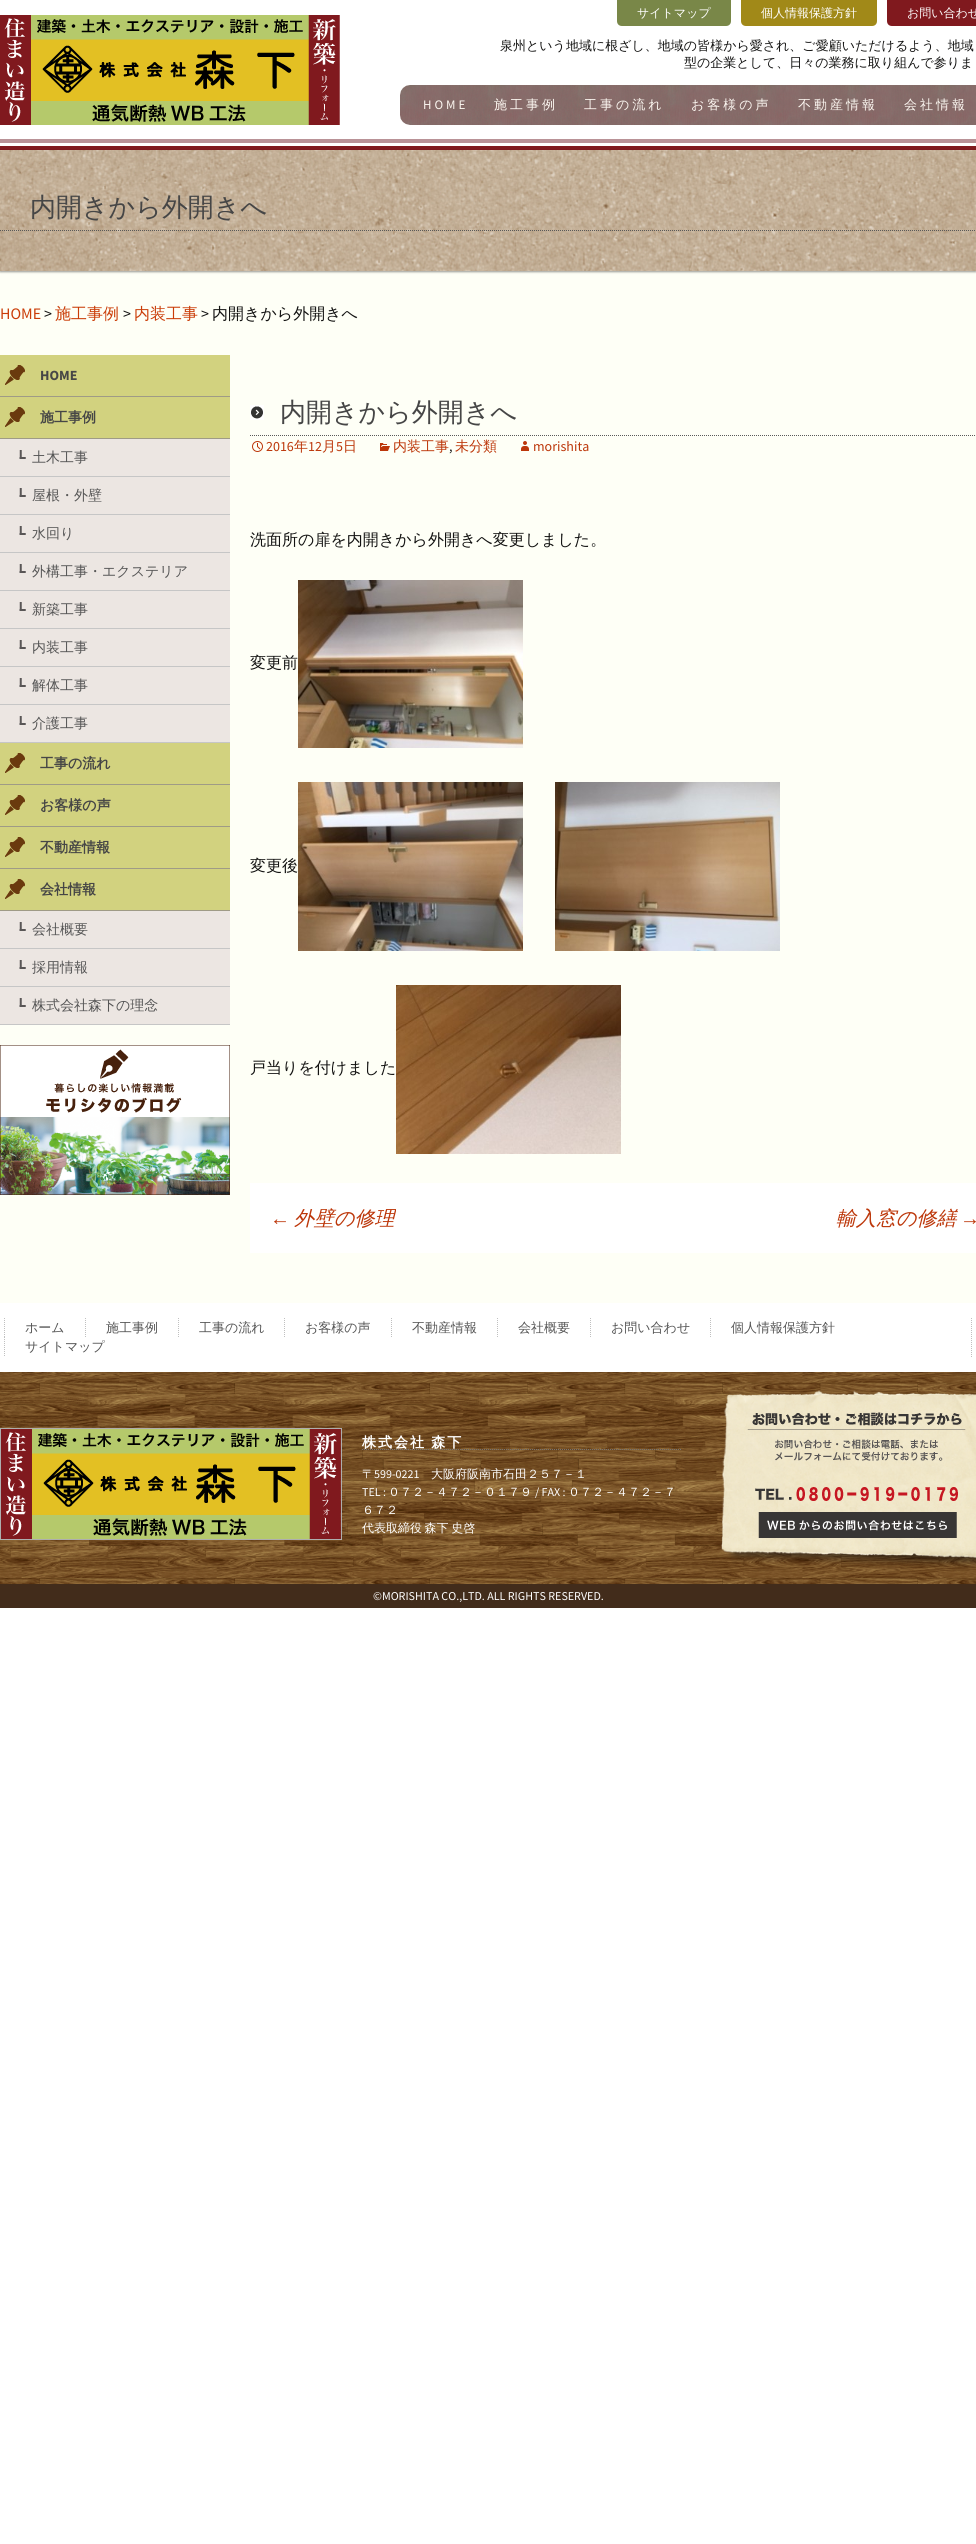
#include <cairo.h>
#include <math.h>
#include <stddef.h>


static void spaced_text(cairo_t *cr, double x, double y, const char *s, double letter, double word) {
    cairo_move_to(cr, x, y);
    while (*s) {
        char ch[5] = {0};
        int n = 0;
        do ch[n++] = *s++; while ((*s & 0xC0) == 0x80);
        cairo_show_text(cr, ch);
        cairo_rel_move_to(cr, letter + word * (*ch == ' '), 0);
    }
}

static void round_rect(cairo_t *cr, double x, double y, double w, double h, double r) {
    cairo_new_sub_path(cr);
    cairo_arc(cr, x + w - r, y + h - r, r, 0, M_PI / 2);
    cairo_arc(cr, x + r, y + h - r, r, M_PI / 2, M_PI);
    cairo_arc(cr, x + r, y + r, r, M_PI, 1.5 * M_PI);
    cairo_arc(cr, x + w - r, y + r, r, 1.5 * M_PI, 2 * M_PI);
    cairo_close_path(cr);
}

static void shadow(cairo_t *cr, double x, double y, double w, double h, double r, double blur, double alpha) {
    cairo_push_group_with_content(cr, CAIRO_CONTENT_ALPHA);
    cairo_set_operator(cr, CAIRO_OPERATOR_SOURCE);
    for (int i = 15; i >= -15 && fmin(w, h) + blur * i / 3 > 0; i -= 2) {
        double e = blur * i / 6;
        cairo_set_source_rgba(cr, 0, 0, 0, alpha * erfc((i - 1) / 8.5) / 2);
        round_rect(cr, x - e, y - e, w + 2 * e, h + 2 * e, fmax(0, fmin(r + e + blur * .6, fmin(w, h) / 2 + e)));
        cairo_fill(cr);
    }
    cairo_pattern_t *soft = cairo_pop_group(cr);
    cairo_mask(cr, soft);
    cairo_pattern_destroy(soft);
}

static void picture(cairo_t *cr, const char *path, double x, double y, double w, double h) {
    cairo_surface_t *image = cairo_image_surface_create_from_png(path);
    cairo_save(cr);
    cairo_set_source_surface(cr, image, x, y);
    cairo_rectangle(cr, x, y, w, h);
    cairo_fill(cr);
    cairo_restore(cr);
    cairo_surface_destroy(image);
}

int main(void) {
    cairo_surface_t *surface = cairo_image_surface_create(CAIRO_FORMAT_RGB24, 976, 2544);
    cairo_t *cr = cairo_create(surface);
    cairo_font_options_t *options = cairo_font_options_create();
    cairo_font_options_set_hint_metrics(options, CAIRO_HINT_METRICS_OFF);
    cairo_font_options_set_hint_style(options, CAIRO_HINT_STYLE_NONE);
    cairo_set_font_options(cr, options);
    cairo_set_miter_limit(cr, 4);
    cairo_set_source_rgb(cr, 1, 1, 1);
    cairo_paint(cr);
    cairo_set_source_rgb(cr, 0.502, 0.098, 0.118);
    cairo_rectangle(cr, 0, 146, 976, 4);
    cairo_fill(cr);
    cairo_set_source_rgb(cr, 0.725, 0.573, 0.592);
    cairo_rectangle(cr, 0, 139, 976, 4);
    cairo_fill(cr);
    cairo_set_source_rgb(cr, 0.475, 0.529, 0.282);
    cairo_new_path(cr);
    cairo_move_to(cr, 617, 0);
    cairo_line_to(cr, 731, 0);
    cairo_line_to(cr, 731, 21);
    cairo_curve_to(cr, 731, 24, 729, 26, 726, 26);
    cairo_line_to(cr, 622, 26);
    cairo_curve_to(cr, 619, 26, 617, 24, 617, 21);
    cairo_close_path(cr);
    cairo_fill(cr);
    cairo_select_font_face(cr, "WenQuanYi Zen Hei Medium", CAIRO_FONT_SLANT_NORMAL, CAIRO_FONT_WEIGHT_NORMAL);
    cairo_set_font_size(cr, 12);
    cairo_set_source_rgb(cr, 1, 1, 1);
    cairo_move_to(cr, 637, 17);
    cairo_show_text(cr, "サイトマップ");
    cairo_set_source_rgb(cr, 0.631, 0.537, 0.094);
    cairo_new_path(cr);
    cairo_move_to(cr, 741, 0);
    cairo_line_to(cr, 877, 0);
    cairo_line_to(cr, 877, 21);
    cairo_curve_to(cr, 877, 24, 875, 26, 872, 26);
    cairo_line_to(cr, 746, 26);
    cairo_curve_to(cr, 743, 26, 741, 24, 741, 21);
    cairo_close_path(cr);
    cairo_fill(cr);
    cairo_set_source_rgb(cr, 1, 1, 1);
    cairo_move_to(cr, 761, 17);
    cairo_show_text(cr, "個人情報保護方針");
    cairo_set_source_rgb(cr, 0.502, 0.098, 0.118);
    cairo_new_path(cr);
    cairo_move_to(cr, 887, 0);
    cairo_line_to(cr, 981, 0);
    cairo_line_to(cr, 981, 21);
    cairo_curve_to(cr, 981, 24, 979, 26, 976, 26);
    cairo_line_to(cr, 892, 26);
    cairo_curve_to(cr, 889, 26, 887, 24, 887, 21);
    cairo_close_path(cr);
    cairo_fill(cr);
    cairo_set_source_rgb(cr, 1, 1, 1);
    cairo_move_to(cr, 907, 17);
    cairo_show_text(cr, "お問い合わせ");
    picture(cr, "img1.png", 0, 15, 340, 110);
    cairo_set_font_size(cr, 13);
    cairo_set_source_rgb(cr, 0.078, 0.078, 0.071);
    cairo_move_to(cr, 500, 50);
    cairo_show_text(cr, "泉州という地域に根ざし、地域の皆様から愛され、ご愛顧いただけるよう、地域");
    cairo_move_to(cr, 684, 67);
    cairo_show_text(cr, "型の企業として、日々の業務に取り組んで参りま");
    picture(cr, "img2.png", 400, 85, 576, 40);
    cairo_select_font_face(cr, "Source Sans Pro", CAIRO_FONT_SLANT_NORMAL, CAIRO_FONT_WEIGHT_NORMAL);
    cairo_set_source_rgb(cr, 0.988, 0.965, 0.945);
    spaced_text(cr, 423, 109, "HOME", 3, 0);
    cairo_select_font_face(cr, "WenQuanYi Zen Hei Medium", CAIRO_FONT_SLANT_NORMAL, CAIRO_FONT_WEIGHT_NORMAL);
    spaced_text(cr, 494, 109, "施工事例", 3, 0);
    spaced_text(cr, 584, 109, "工事の流れ", 3, 0);
    spaced_text(cr, 691, 109, "お客様の声", 3, 0);
    spaced_text(cr, 798, 109, "不動産情報", 3, 0);
    spaced_text(cr, 904, 109, "会社情報", 3, 0);
    cairo_set_source_rgb(cr, 0.996, 1, 0.961);
    cairo_rectangle(cr, 0, 271, 976, 1032);
    cairo_fill(cr);
    cairo_set_source_rgb(cr, 0, 0, 0);
    shadow(cr, 0, 151, 976, 121, 0, 1, 0.4);
    picture(cr, "img3.png", 0, 150, 976, 121);
    cairo_new_path(cr);
    cairo_move_to(cr, 0, 230.5);
    cairo_line_to(cr, 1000, 230.5);
    cairo_set_source_rgb(cr, 0.349, 0.349, 0.349);
    cairo_set_line_width(cr, 1);
    cairo_set_dash(cr, (double[]){1, 1}, 2, 0);
    cairo_stroke(cr);
    cairo_set_font_size(cr, 26);
    cairo_set_source_rgb(cr, 0.275, 0.275, 0.275);
    cairo_move_to(cr, 30, 216);
    cairo_show_text(cr, "内開きから外開きへ");
    cairo_select_font_face(cr, "Source Sans Pro", CAIRO_FONT_SLANT_NORMAL, CAIRO_FONT_WEIGHT_NORMAL);
    cairo_set_font_size(cr, 16);
    cairo_set_source_rgb(cr, 0.792, 0.235, 0.031);
    cairo_move_to(cr, 0, 319);
    cairo_show_text(cr, "HOME");
    cairo_set_source_rgb(cr, 0.078, 0.078, 0.071);
    cairo_move_to(cr, 44, 319);
    cairo_show_text(cr, ">");
    cairo_select_font_face(cr, "WenQuanYi Zen Hei Medium", CAIRO_FONT_SLANT_NORMAL, CAIRO_FONT_WEIGHT_NORMAL);
    cairo_set_source_rgb(cr, 0.792, 0.235, 0.031);
    cairo_move_to(cr, 55, 319);
    cairo_show_text(cr, "施工事例");
    cairo_select_font_face(cr, "Source Sans Pro", CAIRO_FONT_SLANT_NORMAL, CAIRO_FONT_WEIGHT_NORMAL);
    cairo_set_source_rgb(cr, 0.078, 0.078, 0.071);
    cairo_move_to(cr, 123, 319);
    cairo_show_text(cr, ">");
    cairo_select_font_face(cr, "WenQuanYi Zen Hei Medium", CAIRO_FONT_SLANT_NORMAL, CAIRO_FONT_WEIGHT_NORMAL);
    cairo_set_source_rgb(cr, 0.792, 0.235, 0.031);
    cairo_move_to(cr, 134, 319);
    cairo_show_text(cr, "内装工事");
    cairo_select_font_face(cr, "Source Sans Pro", CAIRO_FONT_SLANT_NORMAL, CAIRO_FONT_WEIGHT_NORMAL);
    cairo_set_source_rgb(cr, 0.078, 0.078, 0.071);
    cairo_move_to(cr, 201, 319);
    cairo_show_text(cr, ">");
    cairo_select_font_face(cr, "WenQuanYi Zen Hei Medium", CAIRO_FONT_SLANT_NORMAL, CAIRO_FONT_WEIGHT_NORMAL);
    cairo_move_to(cr, 212, 319);
    cairo_show_text(cr, "内開きから外開きへ");
    cairo_set_source_rgb(cr, 0.824, 0.824, 0.498);
    cairo_rectangle(cr, 0, 355, 230, 41);
    cairo_fill(cr);
    picture(cr, "img4.png", 5, 365, 20, 20);
    cairo_set_source_rgb(cr, 0.624, 0.608, 0.525);
    cairo_rectangle(cr, 0, 396, 230, 1);
    cairo_fill(cr);
    cairo_select_font_face(cr, "Source Sans Pro", CAIRO_FONT_SLANT_NORMAL, CAIRO_FONT_WEIGHT_BOLD);
    cairo_set_font_size(cr, 14);
    cairo_set_source_rgb(cr, 0.275, 0.275, 0.275);
    cairo_move_to(cr, 40, 380);
    cairo_show_text(cr, "HOME");
    cairo_set_source_rgb(cr, 0.824, 0.824, 0.498);
    cairo_rectangle(cr, 0, 397, 230, 41);
    cairo_fill(cr);
    picture(cr, "img4.png", 5, 407, 20, 20);
    cairo_set_source_rgb(cr, 0.624, 0.608, 0.525);
    cairo_rectangle(cr, 0, 438, 230, 1);
    cairo_fill(cr);
    cairo_select_font_face(cr, "WenQuanYi Zen Hei", CAIRO_FONT_SLANT_NORMAL, CAIRO_FONT_WEIGHT_BOLD);
    cairo_set_source_rgb(cr, 0.275, 0.275, 0.275);
    cairo_move_to(cr, 40, 422);
    cairo_show_text(cr, "施工事例");
    cairo_set_source_rgb(cr, 0.925, 0.902, 0.886);
    cairo_rectangle(cr, 0, 439, 230, 37);
    cairo_fill(cr);
    picture(cr, "img5.png", 19, 450, 7, 9);
    cairo_set_source_rgb(cr, 0.776, 0.776, 0.776);
    cairo_rectangle(cr, 0, 476, 230, 1);
    cairo_fill(cr);
    cairo_select_font_face(cr, "WenQuanYi Zen Hei Medium", CAIRO_FONT_SLANT_NORMAL, CAIRO_FONT_WEIGHT_NORMAL);
    cairo_set_source_rgb(cr, 0.333, 0.333, 0.333);
    cairo_move_to(cr, 32, 462);
    cairo_show_text(cr, "土木工事");
    cairo_set_source_rgb(cr, 0.925, 0.902, 0.886);
    cairo_rectangle(cr, 0, 477, 230, 37);
    cairo_fill(cr);
    picture(cr, "img5.png", 19, 488, 7, 9);
    cairo_set_source_rgb(cr, 0.776, 0.776, 0.776);
    cairo_rectangle(cr, 0, 514, 230, 1);
    cairo_fill(cr);
    cairo_set_source_rgb(cr, 0.333, 0.333, 0.333);
    cairo_move_to(cr, 32, 500);
    cairo_show_text(cr, "屋根・外壁");
    cairo_set_source_rgb(cr, 0.925, 0.902, 0.886);
    cairo_rectangle(cr, 0, 515, 230, 37);
    cairo_fill(cr);
    picture(cr, "img5.png", 19, 526, 7, 9);
    cairo_set_source_rgb(cr, 0.776, 0.776, 0.776);
    cairo_rectangle(cr, 0, 552, 230, 1);
    cairo_fill(cr);
    cairo_set_source_rgb(cr, 0.333, 0.333, 0.333);
    cairo_move_to(cr, 32, 538);
    cairo_show_text(cr, "水回り");
    cairo_set_source_rgb(cr, 0.925, 0.902, 0.886);
    cairo_rectangle(cr, 0, 553, 230, 37);
    cairo_fill(cr);
    picture(cr, "img5.png", 19, 564, 7, 9);
    cairo_set_source_rgb(cr, 0.776, 0.776, 0.776);
    cairo_rectangle(cr, 0, 590, 230, 1);
    cairo_fill(cr);
    cairo_set_source_rgb(cr, 0.333, 0.333, 0.333);
    cairo_move_to(cr, 32, 576);
    cairo_show_text(cr, "外構工事・エクステリア");
    cairo_set_source_rgb(cr, 0.925, 0.902, 0.886);
    cairo_rectangle(cr, 0, 591, 230, 37);
    cairo_fill(cr);
    picture(cr, "img5.png", 19, 602, 7, 9);
    cairo_set_source_rgb(cr, 0.776, 0.776, 0.776);
    cairo_rectangle(cr, 0, 628, 230, 1);
    cairo_fill(cr);
    cairo_set_source_rgb(cr, 0.333, 0.333, 0.333);
    cairo_move_to(cr, 32, 614);
    cairo_show_text(cr, "新築工事");
    cairo_set_source_rgb(cr, 0.925, 0.902, 0.886);
    cairo_rectangle(cr, 0, 629, 230, 37);
    cairo_fill(cr);
    picture(cr, "img5.png", 19, 640, 7, 9);
    cairo_set_source_rgb(cr, 0.776, 0.776, 0.776);
    cairo_rectangle(cr, 0, 666, 230, 1);
    cairo_fill(cr);
    cairo_set_source_rgb(cr, 0.333, 0.333, 0.333);
    cairo_move_to(cr, 32, 652);
    cairo_show_text(cr, "内装工事");
    cairo_set_source_rgb(cr, 0.925, 0.902, 0.886);
    cairo_rectangle(cr, 0, 667, 230, 37);
    cairo_fill(cr);
    picture(cr, "img5.png", 19, 678, 7, 9);
    cairo_set_source_rgb(cr, 0.776, 0.776, 0.776);
    cairo_rectangle(cr, 0, 704, 230, 1);
    cairo_fill(cr);
    cairo_set_source_rgb(cr, 0.333, 0.333, 0.333);
    cairo_move_to(cr, 32, 690);
    cairo_show_text(cr, "解体工事");
    cairo_set_source_rgb(cr, 0.925, 0.902, 0.886);
    cairo_rectangle(cr, 0, 705, 230, 37);
    cairo_fill(cr);
    picture(cr, "img5.png", 19, 716, 7, 9);
    cairo_set_source_rgb(cr, 0.776, 0.776, 0.776);
    cairo_rectangle(cr, 0, 742, 230, 1);
    cairo_fill(cr);
    cairo_set_source_rgb(cr, 0.333, 0.333, 0.333);
    cairo_move_to(cr, 32, 728);
    cairo_show_text(cr, "介護工事");
    cairo_set_source_rgb(cr, 0.824, 0.824, 0.498);
    cairo_rectangle(cr, 0, 743, 230, 41);
    cairo_fill(cr);
    picture(cr, "img4.png", 5, 753, 20, 20);
    cairo_set_source_rgb(cr, 0.624, 0.608, 0.525);
    cairo_rectangle(cr, 0, 784, 230, 1);
    cairo_fill(cr);
    cairo_select_font_face(cr, "WenQuanYi Zen Hei", CAIRO_FONT_SLANT_NORMAL, CAIRO_FONT_WEIGHT_BOLD);
    cairo_set_source_rgb(cr, 0.275, 0.275, 0.275);
    cairo_move_to(cr, 40, 768);
    cairo_show_text(cr, "工事の流れ");
    cairo_set_source_rgb(cr, 0.824, 0.824, 0.498);
    cairo_rectangle(cr, 0, 785, 230, 41);
    cairo_fill(cr);
    picture(cr, "img4.png", 5, 795, 20, 20);
    cairo_set_source_rgb(cr, 0.624, 0.608, 0.525);
    cairo_rectangle(cr, 0, 826, 230, 1);
    cairo_fill(cr);
    cairo_set_source_rgb(cr, 0.275, 0.275, 0.275);
    cairo_move_to(cr, 40, 810);
    cairo_show_text(cr, "お客様の声");
    cairo_set_source_rgb(cr, 0.824, 0.824, 0.498);
    cairo_rectangle(cr, 0, 827, 230, 41);
    cairo_fill(cr);
    picture(cr, "img4.png", 5, 837, 20, 20);
    cairo_set_source_rgb(cr, 0.624, 0.608, 0.525);
    cairo_rectangle(cr, 0, 868, 230, 1);
    cairo_fill(cr);
    cairo_set_source_rgb(cr, 0.275, 0.275, 0.275);
    cairo_move_to(cr, 40, 852);
    cairo_show_text(cr, "不動産情報");
    cairo_set_source_rgb(cr, 0.824, 0.824, 0.498);
    cairo_rectangle(cr, 0, 869, 230, 41);
    cairo_fill(cr);
    picture(cr, "img4.png", 5, 879, 20, 20);
    cairo_set_source_rgb(cr, 0.624, 0.608, 0.525);
    cairo_rectangle(cr, 0, 910, 230, 1);
    cairo_fill(cr);
    cairo_set_source_rgb(cr, 0.275, 0.275, 0.275);
    cairo_move_to(cr, 40, 894);
    cairo_show_text(cr, "会社情報");
    cairo_set_source_rgb(cr, 0.925, 0.902, 0.886);
    cairo_rectangle(cr, 0, 911, 230, 37);
    cairo_fill(cr);
    picture(cr, "img5.png", 19, 922, 7, 9);
    cairo_set_source_rgb(cr, 0.776, 0.776, 0.776);
    cairo_rectangle(cr, 0, 948, 230, 1);
    cairo_fill(cr);
    cairo_select_font_face(cr, "WenQuanYi Zen Hei Medium", CAIRO_FONT_SLANT_NORMAL, CAIRO_FONT_WEIGHT_NORMAL);
    cairo_set_source_rgb(cr, 0.333, 0.333, 0.333);
    cairo_move_to(cr, 32, 934);
    cairo_show_text(cr, "会社概要");
    cairo_set_source_rgb(cr, 0.925, 0.902, 0.886);
    cairo_rectangle(cr, 0, 949, 230, 37);
    cairo_fill(cr);
    picture(cr, "img5.png", 19, 960, 7, 9);
    cairo_set_source_rgb(cr, 0.776, 0.776, 0.776);
    cairo_rectangle(cr, 0, 986, 230, 1);
    cairo_fill(cr);
    cairo_set_source_rgb(cr, 0.333, 0.333, 0.333);
    cairo_move_to(cr, 32, 972);
    cairo_show_text(cr, "採用情報");
    cairo_set_source_rgb(cr, 0.925, 0.902, 0.886);
    cairo_rectangle(cr, 0, 987, 230, 37);
    cairo_fill(cr);
    picture(cr, "img5.png", 19, 998, 7, 9);
    cairo_set_source_rgb(cr, 0.776, 0.776, 0.776);
    cairo_rectangle(cr, 0, 1024, 230, 1);
    cairo_fill(cr);
    cairo_set_source_rgb(cr, 0.333, 0.333, 0.333);
    cairo_move_to(cr, 32, 1010);
    cairo_show_text(cr, "株式会社森下の理念");
    picture(cr, "img6.png", 0, 1045, 230, 150);
    picture(cr, "img7.png", 250, 405, 14, 15);
    cairo_new_path(cr);
    cairo_move_to(cr, 250, 435.5);
    cairo_line_to(cr, 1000, 435.5);
    cairo_set_source_rgb(cr, 0.349, 0.349, 0.349);
    cairo_stroke(cr);
    cairo_set_font_size(cr, 26);
    cairo_set_source_rgb(cr, 0.275, 0.275, 0.275);
    cairo_move_to(cr, 280, 421);
    cairo_show_text(cr, "内開きから外開きへ");
    picture(cr, "img8.png", 252, 441, 11, 11);
    cairo_select_font_face(cr, "Source Sans Pro", CAIRO_FONT_SLANT_NORMAL, CAIRO_FONT_WEIGHT_NORMAL);
    cairo_set_font_size(cr, 14);
    cairo_set_source_rgb(cr, 0.737, 0.212, 0.039);
    cairo_move_to(cr, 266, 451);
    cairo_show_text(cr, "2016");
    cairo_select_font_face(cr, "WenQuanYi Zen Hei Medium", CAIRO_FONT_SLANT_NORMAL, CAIRO_FONT_WEIGHT_NORMAL);
    cairo_move_to(cr, 294, 451);
    cairo_show_text(cr, "年");
    cairo_select_font_face(cr, "Source Sans Pro", CAIRO_FONT_SLANT_NORMAL, CAIRO_FONT_WEIGHT_NORMAL);
    cairo_move_to(cr, 308, 451);
    cairo_show_text(cr, "12");
    cairo_select_font_face(cr, "WenQuanYi Zen Hei Medium", CAIRO_FONT_SLANT_NORMAL, CAIRO_FONT_WEIGHT_NORMAL);
    cairo_move_to(cr, 322, 451);
    cairo_show_text(cr, "月");
    cairo_select_font_face(cr, "Source Sans Pro", CAIRO_FONT_SLANT_NORMAL, CAIRO_FONT_WEIGHT_NORMAL);
    cairo_move_to(cr, 336, 451);
    cairo_show_text(cr, "5");
    cairo_select_font_face(cr, "WenQuanYi Zen Hei Medium", CAIRO_FONT_SLANT_NORMAL, CAIRO_FONT_WEIGHT_NORMAL);
    cairo_move_to(cr, 343, 451);
    cairo_show_text(cr, "日");
    picture(cr, "img9.png", 380, 443, 10, 8);
    cairo_move_to(cr, 393, 451);
    cairo_show_text(cr, "内装工事");
    cairo_select_font_face(cr, "Source Sans Pro", CAIRO_FONT_SLANT_NORMAL, CAIRO_FONT_WEIGHT_NORMAL);
    cairo_set_source_rgb(cr, 0.078, 0.078, 0.071);
    cairo_move_to(cr, 449, 451);
    cairo_show_text(cr, ",");
    cairo_select_font_face(cr, "WenQuanYi Zen Hei Medium", CAIRO_FONT_SLANT_NORMAL, CAIRO_FONT_WEIGHT_NORMAL);
    cairo_set_source_rgb(cr, 0.737, 0.212, 0.039);
    cairo_move_to(cr, 455, 451);
    cairo_show_text(cr, "未分類");
    picture(cr, "img10.png", 521, 441, 8, 10);
    cairo_select_font_face(cr, "Source Sans Pro", CAIRO_FONT_SLANT_NORMAL, CAIRO_FONT_WEIGHT_NORMAL);
    cairo_move_to(cr, 533, 451);
    cairo_show_text(cr, "morishita");
    cairo_select_font_face(cr, "WenQuanYi Zen Hei Medium", CAIRO_FONT_SLANT_NORMAL, CAIRO_FONT_WEIGHT_NORMAL);
    cairo_set_font_size(cr, 16);
    cairo_set_source_rgb(cr, 0.078, 0.078, 0.071);
    cairo_move_to(cr, 250, 545);
    cairo_show_text(cr, "洗面所の扉を内開きから外開きへ変更しました。");
    cairo_move_to(cr, 250, 668);
    cairo_show_text(cr, "変更前");
    picture(cr, "img11.png", 298, 580, 225, 168);
    cairo_move_to(cr, 250, 871);
    cairo_show_text(cr, "変更後");
    picture(cr, "img12.png", 298, 782, 225, 169);
    picture(cr, "img13.png", 555, 782, 225, 169);
    cairo_move_to(cr, 250, 1073);
    cairo_show_text(cr, "戸当りを付けました");
    picture(cr, "img14.png", 396, 985, 225, 169);
    cairo_set_source_rgb(cr, 1, 1, 1);
    cairo_rectangle(cr, 250, 1183, 726, 70);
    cairo_fill(cr);
    cairo_select_font_face(cr, "Liberation Sans", CAIRO_FONT_SLANT_ITALIC, CAIRO_FONT_WEIGHT_NORMAL);
    cairo_set_font_size(cr, 20);
    cairo_set_source_rgb(cr, 0.737, 0.212, 0.039);
    cairo_move_to(cr, 270, 1225);
    cairo_show_text(cr, "←");
    cairo_select_font_face(cr, "WenQuanYi Zen Hei Medium", CAIRO_FONT_SLANT_ITALIC, CAIRO_FONT_WEIGHT_NORMAL);
    cairo_move_to(cr, 294, 1225);
    cairo_show_text(cr, "外壁の修理");
    cairo_move_to(cr, 836, 1225);
    cairo_show_text(cr, "輸入窓の修繕");
    cairo_select_font_face(cr, "Liberation Sans", CAIRO_FONT_SLANT_ITALIC, CAIRO_FONT_WEIGHT_NORMAL);
    cairo_move_to(cr, 960, 1225);
    cairo_show_text(cr, "→");
    cairo_new_path(cr);
    cairo_move_to(cr, 971.5, 1318);
    cairo_line_to(cr, 971.5, 1357);
    cairo_set_source_rgb(cr, 0.753, 0.753, 0.753);
    cairo_stroke(cr);
    cairo_new_path(cr);
    cairo_move_to(cr, 4.5, 1318);
    cairo_line_to(cr, 4.5, 1337);
    cairo_stroke(cr);
    cairo_select_font_face(cr, "WenQuanYi Zen Hei Medium", CAIRO_FONT_SLANT_NORMAL, CAIRO_FONT_WEIGHT_NORMAL);
    cairo_set_font_size(cr, 13);
    cairo_set_source_rgb(cr, 0.333, 0.333, 0.333);
    cairo_move_to(cr, 25, 1332);
    cairo_show_text(cr, "ホーム");
    cairo_new_path(cr);
    cairo_move_to(cr, 85.5, 1318);
    cairo_line_to(cr, 85.5, 1337);
    cairo_set_source_rgb(cr, 0.753, 0.753, 0.753);
    cairo_stroke(cr);
    cairo_set_source_rgb(cr, 0.333, 0.333, 0.333);
    cairo_move_to(cr, 106, 1332);
    cairo_show_text(cr, "施工事例");
    cairo_new_path(cr);
    cairo_move_to(cr, 178.5, 1318);
    cairo_line_to(cr, 178.5, 1337);
    cairo_set_source_rgb(cr, 0.753, 0.753, 0.753);
    cairo_stroke(cr);
    cairo_set_source_rgb(cr, 0.333, 0.333, 0.333);
    cairo_move_to(cr, 199, 1332);
    cairo_show_text(cr, "工事の流れ");
    cairo_new_path(cr);
    cairo_move_to(cr, 284.5, 1318);
    cairo_line_to(cr, 284.5, 1337);
    cairo_set_source_rgb(cr, 0.753, 0.753, 0.753);
    cairo_stroke(cr);
    cairo_set_source_rgb(cr, 0.333, 0.333, 0.333);
    cairo_move_to(cr, 305, 1332);
    cairo_show_text(cr, "お客様の声");
    cairo_new_path(cr);
    cairo_move_to(cr, 391.5, 1318);
    cairo_line_to(cr, 391.5, 1337);
    cairo_set_source_rgb(cr, 0.753, 0.753, 0.753);
    cairo_stroke(cr);
    cairo_set_source_rgb(cr, 0.333, 0.333, 0.333);
    cairo_move_to(cr, 412, 1332);
    cairo_show_text(cr, "不動産情報");
    cairo_new_path(cr);
    cairo_move_to(cr, 497.5, 1318);
    cairo_line_to(cr, 497.5, 1337);
    cairo_set_source_rgb(cr, 0.753, 0.753, 0.753);
    cairo_stroke(cr);
    cairo_set_source_rgb(cr, 0.333, 0.333, 0.333);
    cairo_move_to(cr, 518, 1332);
    cairo_show_text(cr, "会社概要");
    cairo_new_path(cr);
    cairo_move_to(cr, 590.5, 1318);
    cairo_line_to(cr, 590.5, 1337);
    cairo_set_source_rgb(cr, 0.753, 0.753, 0.753);
    cairo_stroke(cr);
    cairo_set_source_rgb(cr, 0.333, 0.333, 0.333);
    cairo_move_to(cr, 611, 1332);
    cairo_show_text(cr, "お問い合わせ");
    cairo_new_path(cr);
    cairo_move_to(cr, 710.5, 1318);
    cairo_line_to(cr, 710.5, 1337);
    cairo_set_source_rgb(cr, 0.753, 0.753, 0.753);
    cairo_stroke(cr);
    cairo_set_source_rgb(cr, 0.333, 0.333, 0.333);
    cairo_move_to(cr, 731, 1332);
    cairo_show_text(cr, "個人情報保護方針");
    cairo_new_path(cr);
    cairo_move_to(cr, 4.5, 1337);
    cairo_line_to(cr, 4.5, 1357);
    cairo_set_source_rgb(cr, 0.753, 0.753, 0.753);
    cairo_stroke(cr);
    cairo_set_source_rgb(cr, 0.333, 0.333, 0.333);
    cairo_move_to(cr, 25, 1351);
    cairo_show_text(cr, "サイトマップ");
    picture(cr, "img15.png", 0, 1372, 976, 212);
    cairo_rectangle(cr, 0.5, 1428.5, 341, 111);
    cairo_set_source_rgb(cr, 0.682, 0.682, 0.682);
    cairo_set_dash(cr, NULL, 0, 0);
    cairo_stroke(cr);
    picture(cr, "img16.png", 1, 1429, 340, 110);
    cairo_new_path(cr);
    cairo_move_to(cr, 362, 1449.5);
    cairo_line_to(cr, 682, 1449.5);
    cairo_set_source_rgb(cr, 0.459, 0.459, 0.459);
    cairo_set_dash(cr, (double[]){1, 1}, 2, 0);
    cairo_stroke(cr);
    cairo_select_font_face(cr, "WenQuanYi Zen Hei", CAIRO_FONT_SLANT_NORMAL, CAIRO_FONT_WEIGHT_BOLD);
    cairo_set_font_size(cr, 14);
    cairo_set_source_rgb(cr, 1, 1, 1);
    spaced_text(cr, 362, 1447, "株式会社 森下", 2, -1);
    cairo_select_font_face(cr, "WenQuanYi Zen Hei Medium", CAIRO_FONT_SLANT_NORMAL, CAIRO_FONT_WEIGHT_NORMAL);
    cairo_set_font_size(cr, 12);
    cairo_move_to(cr, 362, 1478);
    cairo_show_text(cr, "〒");
    cairo_select_font_face(cr, "Source Sans Pro", CAIRO_FONT_SLANT_NORMAL, CAIRO_FONT_WEIGHT_NORMAL);
    cairo_move_to(cr, 374, 1478);
    cairo_show_text(cr, "599-0221");
    cairo_select_font_face(cr, "WenQuanYi Zen Hei Medium", CAIRO_FONT_SLANT_NORMAL, CAIRO_FONT_WEIGHT_NORMAL);
    cairo_move_to(cr, 431, 1478);
    cairo_show_text(cr, "大阪府阪南市石田２５７－１");
    cairo_select_font_face(cr, "Source Sans Pro", CAIRO_FONT_SLANT_NORMAL, CAIRO_FONT_WEIGHT_NORMAL);
    cairo_move_to(cr, 362, 1496);
    cairo_show_text(cr, "TEL :");
    cairo_select_font_face(cr, "WenQuanYi Zen Hei Medium", CAIRO_FONT_SLANT_NORMAL, CAIRO_FONT_WEIGHT_NORMAL);
    cairo_move_to(cr, 388, 1496);
    cairo_show_text(cr, "０７２－４７２－０１７９");
    cairo_select_font_face(cr, "Source Sans Pro", CAIRO_FONT_SLANT_NORMAL, CAIRO_FONT_WEIGHT_NORMAL);
    cairo_move_to(cr, 535, 1496);
    cairo_show_text(cr, "/ FAX :");
    cairo_select_font_face(cr, "WenQuanYi Zen Hei Medium", CAIRO_FONT_SLANT_NORMAL, CAIRO_FONT_WEIGHT_NORMAL);
    cairo_move_to(cr, 568, 1496);
    cairo_show_text(cr, "０７２－４７２－７");
    cairo_move_to(cr, 362, 1514);
    cairo_show_text(cr, "６７２");
    spaced_text(cr, 362, 1532, "代表取締役 森下 史啓", 0, -1);
    picture(cr, "img17.png", 721, 1390, 255, 178);
    picture(cr, "img18.png", 758, 1512, 199, 26);
    cairo_set_source_rgb(cr, 0.259, 0.173, 0.106);
    cairo_rectangle(cr, 0, 1584, 976, 24);
    cairo_fill(cr);
    cairo_select_font_face(cr, "Source Sans Pro", CAIRO_FONT_SLANT_NORMAL, CAIRO_FONT_WEIGHT_NORMAL);
    cairo_set_source_rgb(cr, 1, 1, 1);
    cairo_move_to(cr, 373, 1600);
    cairo_show_text(cr, "©MORISHITA CO.,LTD. ALL RIGHTS RESERVED.");
    cairo_surface_write_to_png(surface, "page.png");
    cairo_font_options_destroy(options);
    cairo_destroy(cr);
    cairo_surface_destroy(surface);
    return 0;
}
